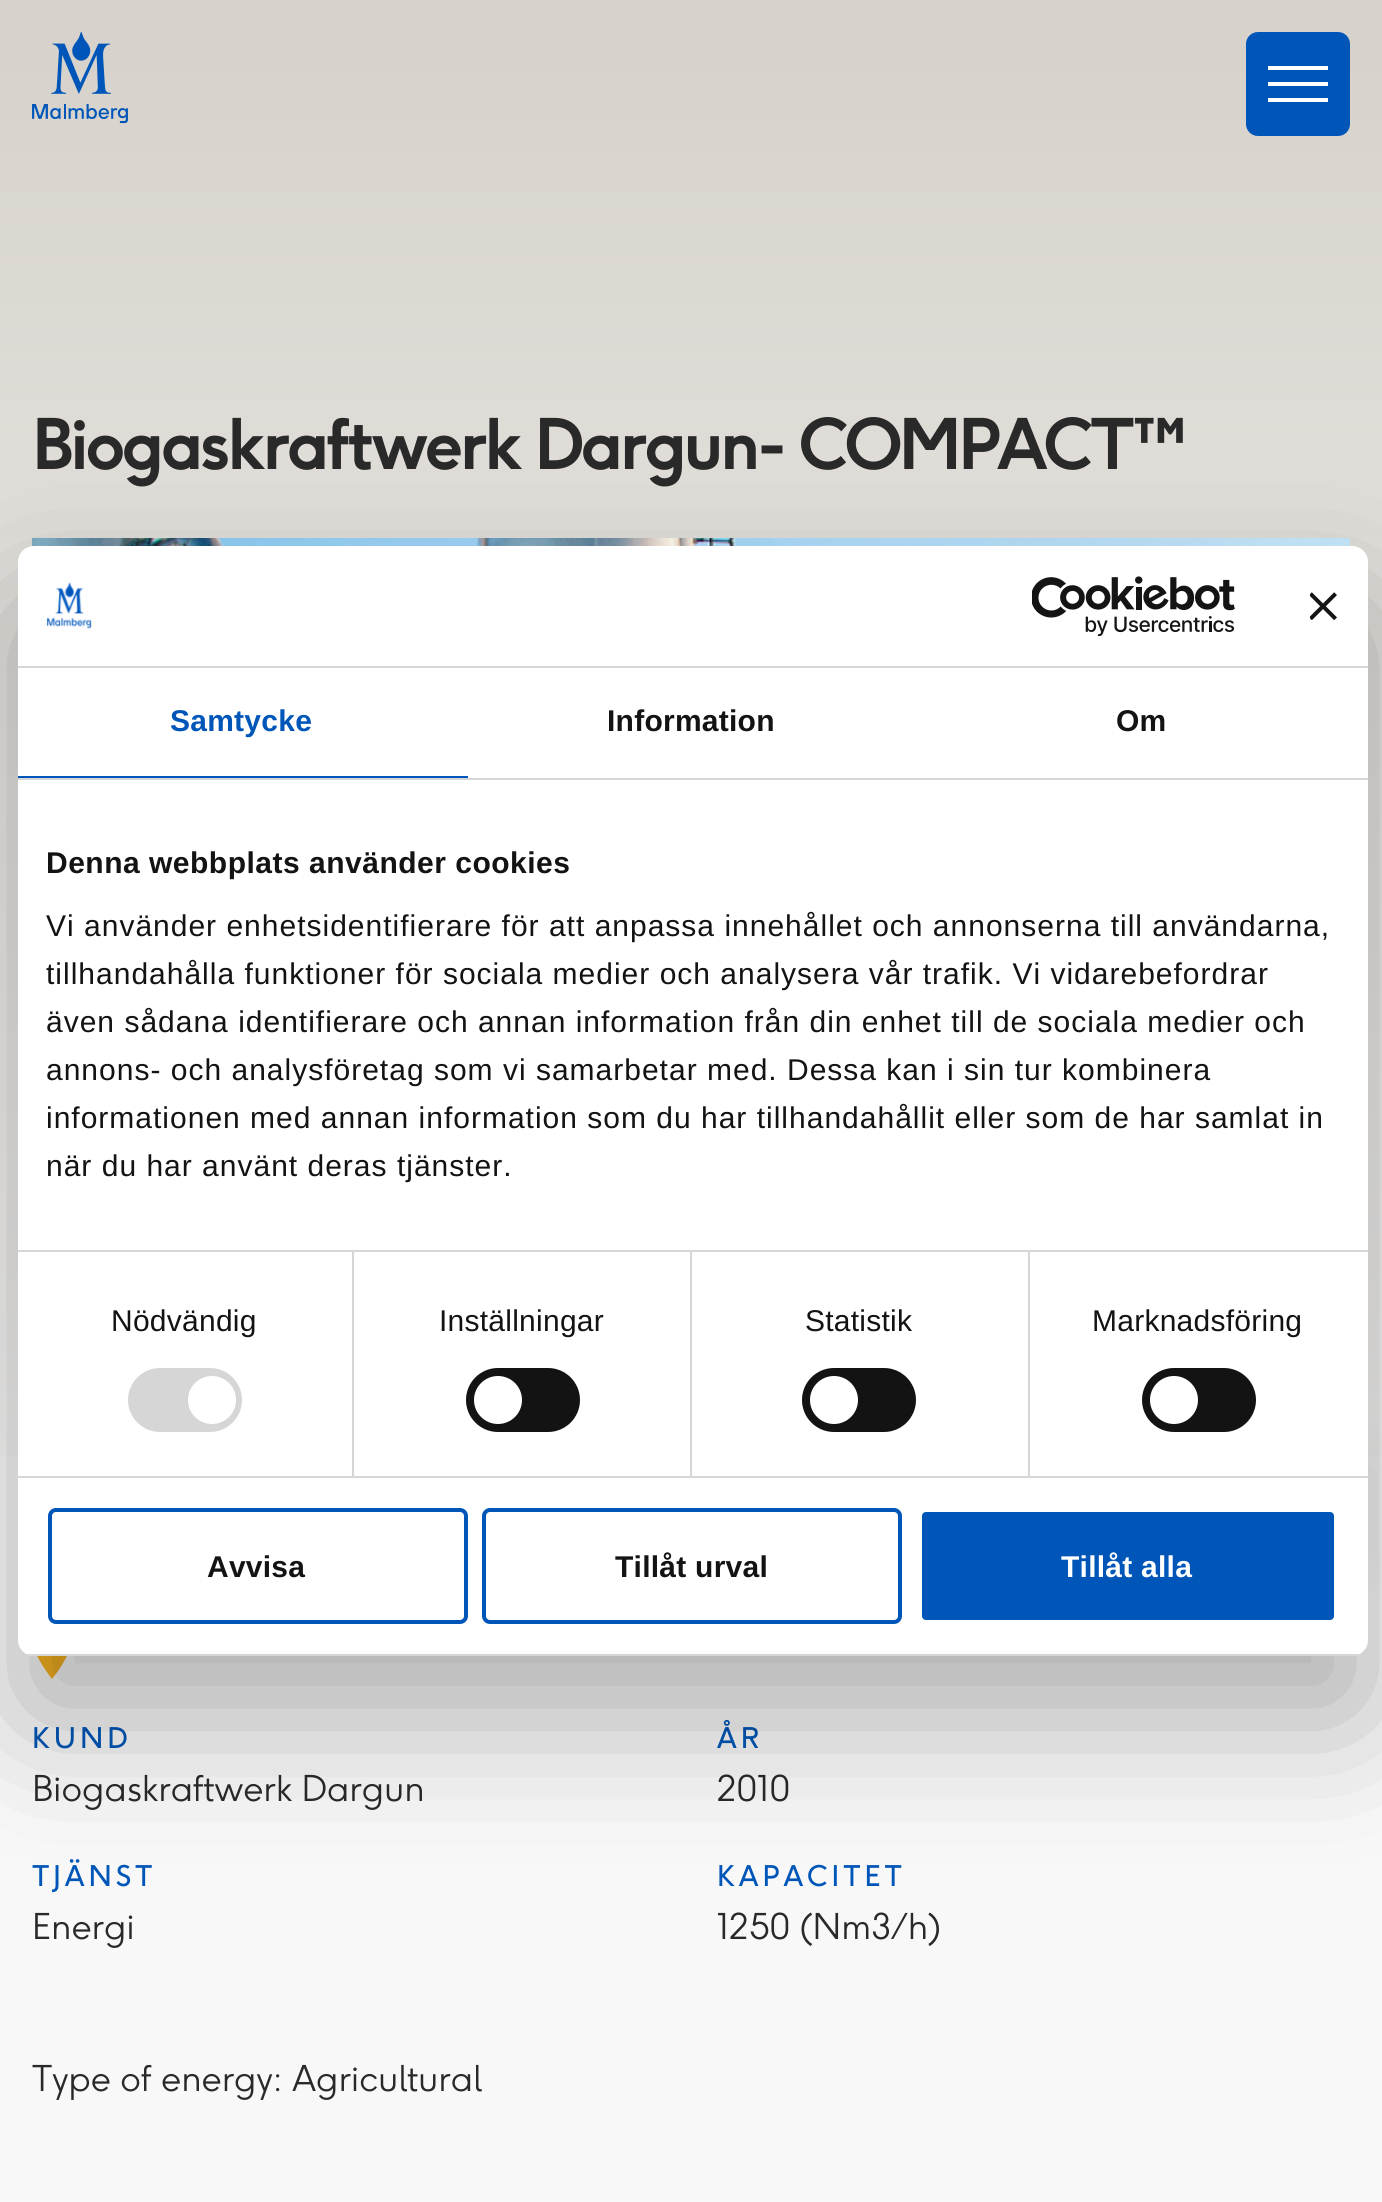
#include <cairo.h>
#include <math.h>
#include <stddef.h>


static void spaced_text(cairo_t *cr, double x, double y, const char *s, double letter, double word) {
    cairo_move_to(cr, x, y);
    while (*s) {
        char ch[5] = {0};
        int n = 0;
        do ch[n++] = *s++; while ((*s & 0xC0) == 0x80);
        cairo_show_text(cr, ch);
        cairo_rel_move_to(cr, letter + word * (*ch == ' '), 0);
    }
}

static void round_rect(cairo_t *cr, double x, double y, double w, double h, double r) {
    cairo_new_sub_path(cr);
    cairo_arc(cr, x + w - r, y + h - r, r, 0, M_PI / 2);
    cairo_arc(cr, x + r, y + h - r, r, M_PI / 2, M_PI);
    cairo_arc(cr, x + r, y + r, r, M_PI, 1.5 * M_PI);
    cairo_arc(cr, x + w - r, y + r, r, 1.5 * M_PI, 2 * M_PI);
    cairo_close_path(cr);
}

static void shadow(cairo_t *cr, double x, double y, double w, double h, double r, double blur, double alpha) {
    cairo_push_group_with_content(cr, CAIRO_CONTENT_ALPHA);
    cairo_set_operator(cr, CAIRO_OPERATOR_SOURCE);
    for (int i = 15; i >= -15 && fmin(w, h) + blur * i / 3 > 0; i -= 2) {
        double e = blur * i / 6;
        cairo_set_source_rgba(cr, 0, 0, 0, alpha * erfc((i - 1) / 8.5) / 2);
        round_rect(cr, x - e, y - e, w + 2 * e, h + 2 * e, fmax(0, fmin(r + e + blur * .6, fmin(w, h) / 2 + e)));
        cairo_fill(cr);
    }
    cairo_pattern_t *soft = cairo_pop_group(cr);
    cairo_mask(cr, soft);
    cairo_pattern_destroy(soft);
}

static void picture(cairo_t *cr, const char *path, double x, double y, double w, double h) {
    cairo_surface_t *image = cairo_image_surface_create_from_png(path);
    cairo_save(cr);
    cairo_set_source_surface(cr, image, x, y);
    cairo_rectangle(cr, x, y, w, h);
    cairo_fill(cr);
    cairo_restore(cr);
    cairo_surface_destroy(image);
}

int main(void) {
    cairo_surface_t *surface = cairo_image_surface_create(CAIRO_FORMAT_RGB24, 1382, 2202);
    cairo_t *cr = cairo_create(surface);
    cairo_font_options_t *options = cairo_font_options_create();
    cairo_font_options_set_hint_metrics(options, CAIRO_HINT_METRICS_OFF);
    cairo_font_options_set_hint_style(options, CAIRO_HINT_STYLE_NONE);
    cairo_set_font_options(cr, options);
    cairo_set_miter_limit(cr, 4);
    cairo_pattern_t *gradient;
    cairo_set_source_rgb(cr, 0.969, 0.969, 0.969);
    cairo_paint(cr);
    gradient = cairo_pattern_create_linear(691, 0, 691, 1542);
    cairo_pattern_add_color_stop_rgba(gradient, 0, 0.839, 0.82, 0.792, 1);
    cairo_pattern_add_color_stop_rgba(gradient, 1, 0.969, 0.969, 0.969, 1);
    cairo_set_source(cr, gradient);
    cairo_pattern_destroy(gradient);
    cairo_rectangle(cr, 0, 0, 1382, 1456);
    cairo_fill(cr);
    picture(cr, "img1.png", 32, 32, 96, 92);
    cairo_set_source_rgb(cr, 0, 0.337, 0.722);
    round_rect(cr, 1246, 32, 104, 104, 12);
    cairo_fill(cr);
    cairo_set_source_rgb(cr, 1, 1, 1);
    cairo_rectangle(cr, 1268, 66, 60, 4);
    cairo_fill(cr);
    cairo_rectangle(cr, 1268, 82, 60, 4);
    cairo_fill(cr);
    cairo_rectangle(cr, 1268, 98, 60, 4);
    cairo_fill(cr);
    cairo_select_font_face(cr, "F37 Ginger", CAIRO_FONT_SLANT_NORMAL, CAIRO_FONT_WEIGHT_BOLD);
    cairo_set_font_size(cr, 69.1);
    cairo_set_source_rgb(cr, 0.161, 0.161, 0.161);
    spaced_text(cr, 32, 469, "Biogaskraftwerk Dargun- COMPACT™", -3.45, 0);
    picture(cr, "img2.png", 32, 538, 1318, 9);
    cairo_set_source_rgb(cr, 0, 0, 0);
    shadow(cr, 1278, 1466, 96, 96, 0, 29, 0.05);
    cairo_set_source_rgb(cr, 0.957, 0.698, 0.129);
    cairo_new_path(cr);
    cairo_move_to(cr, 72, 1638);
    cairo_curve_to(cr, 72, 1621, 50, 1612, 38, 1624);
    cairo_curve_to(cr, 23, 1639, 42, 1666, 52, 1679);
    cairo_curve_to(cr, 52, 1679, 72, 1655, 72, 1638);
    cairo_move_to(cr, 65, 1639);
    cairo_curve_to(cr, 65, 1657, 39, 1657, 39, 1639);
    cairo_curve_to(cr, 39, 1622, 65, 1622, 65, 1639);
    cairo_fill(cr);
    cairo_select_font_face(cr, "F37 Ginger", CAIRO_FONT_SLANT_NORMAL, CAIRO_FONT_WEIGHT_NORMAL);
    cairo_set_font_size(cr, 28.25);
    cairo_set_source_rgb(cr, 0, 0.337, 0.722);
    spaced_text(cr, 32, 1748, "KUND", 4, 0);
    cairo_select_font_face(cr, "F37 Ginger Light", CAIRO_FONT_SLANT_NORMAL, CAIRO_FONT_WEIGHT_NORMAL);
    cairo_set_font_size(cr, 35.25);
    cairo_set_source_rgb(cr, 0.161, 0.161, 0.161);
    cairo_move_to(cr, 32, 1801);
    cairo_show_text(cr, "Biogaskraftwerk Dargun");
    cairo_select_font_face(cr, "F37 Ginger", CAIRO_FONT_SLANT_NORMAL, CAIRO_FONT_WEIGHT_NORMAL);
    cairo_set_font_size(cr, 28.25);
    cairo_set_source_rgb(cr, 0, 0.337, 0.722);
    spaced_text(cr, 717, 1748, "ÅR", 4, 0);
    cairo_select_font_face(cr, "F37 Ginger Light", CAIRO_FONT_SLANT_NORMAL, CAIRO_FONT_WEIGHT_NORMAL);
    cairo_set_font_size(cr, 35.25);
    cairo_set_source_rgb(cr, 0.161, 0.161, 0.161);
    cairo_move_to(cr, 717, 1801);
    cairo_show_text(cr, "2010");
    cairo_select_font_face(cr, "F37 Ginger", CAIRO_FONT_SLANT_NORMAL, CAIRO_FONT_WEIGHT_NORMAL);
    cairo_set_font_size(cr, 28.25);
    cairo_set_source_rgb(cr, 0, 0.337, 0.722);
    spaced_text(cr, 32, 1886, "TJÄNST", 4, 0);
    cairo_select_font_face(cr, "F37 Ginger Light", CAIRO_FONT_SLANT_NORMAL, CAIRO_FONT_WEIGHT_NORMAL);
    cairo_set_font_size(cr, 35.25);
    cairo_set_source_rgb(cr, 0.161, 0.161, 0.161);
    cairo_move_to(cr, 32, 1939);
    cairo_show_text(cr, "Energi");
    cairo_select_font_face(cr, "F37 Ginger", CAIRO_FONT_SLANT_NORMAL, CAIRO_FONT_WEIGHT_NORMAL);
    cairo_set_font_size(cr, 28.25);
    cairo_set_source_rgb(cr, 0, 0.337, 0.722);
    spaced_text(cr, 717, 1886, "KAPACITET", 4, 0);
    cairo_select_font_face(cr, "F37 Ginger Light", CAIRO_FONT_SLANT_NORMAL, CAIRO_FONT_WEIGHT_NORMAL);
    cairo_set_font_size(cr, 35.25);
    cairo_set_source_rgb(cr, 0.161, 0.161, 0.161);
    cairo_move_to(cr, 717, 1939);
    cairo_show_text(cr, "1250 (Nm3/h)");
    cairo_move_to(cr, 32, 2091);
    cairo_show_text(cr, "Type of energy: Agricultural");
    cairo_set_source_rgb(cr, 0, 0, 0);
    shadow(cr, 18, 610, 1350, 1110, 16, 68, 0.3);
    cairo_set_source_rgb(cr, 1, 1, 1);
    round_rect(cr, 18, 546, 1350, 1110, 16);
    cairo_fill(cr);
    cairo_set_source_rgb(cr, 0.839, 0.839, 0.839);
    cairo_rectangle(cr, 18, 666, 1350, 2);
    cairo_fill(cr);
    picture(cr, "img3.png", 46, 582, 46, 47);
    picture(cr, "img4.png", 1032, 576, 203, 60);
    picture(cr, "img5.png", 1310, 592, 27, 28);
    cairo_rectangle(cr, 18, 778, 1350, 2);
    cairo_fill(cr);
    cairo_set_source_rgb(cr, 0, 0.337, 0.722);
    cairo_rectangle(cr, 18, 776, 450, 2);
    cairo_fill(cr);
    cairo_select_font_face(cr, "Liberation Sans", CAIRO_FONT_SLANT_NORMAL, CAIRO_FONT_WEIGHT_BOLD);
    cairo_set_font_size(cr, 30);
    spaced_text(cr, 170, 731, "Samtycke", 0.25, 0);
    cairo_set_source_rgb(cr, 0.078, 0.078, 0.078);
    spaced_text(cr, 607, 731, "Information", 0.25, 0);
    spaced_text(cr, 1116, 731, "Om", 0.25, 0);
    cairo_set_source_rgb(cr, 0.839, 0.839, 0.839);
    cairo_rectangle(cr, 18, 1250, 1350, 2);
    cairo_fill(cr);
    cairo_set_source_rgb(cr, 0.078, 0.078, 0.078);
    spaced_text(cr, 46, 873, "Denna webbplats använder cookies", 0.5, 0);
    cairo_select_font_face(cr, "Liberation Sans", CAIRO_FONT_SLANT_NORMAL, CAIRO_FONT_WEIGHT_NORMAL);
    spaced_text(cr, 46, 936, "Vi använder enhetsidentifierare för att anpassa innehållet och annonserna till användarna,", 1, 0);
    spaced_text(cr, 46, 984, "tillhandahålla funktioner för sociala medier och analysera vår trafik. Vi vidarebefordrar", 1, 0);
    spaced_text(cr, 46, 1032, "även sådana identifierare och annan information från din enhet till de sociala medier och", 1, 0);
    spaced_text(cr, 46, 1080, "annons- och analysföretag som vi samarbetar med. Dessa kan i sin tur kombinera", 1, 0);
    spaced_text(cr, 46, 1128, "informationen med annan information som du har tillhandahållit eller som de har samlat in", 1, 0);
    spaced_text(cr, 46, 1176, "när du har använt deras tjänster.", 1, 0);
    cairo_set_source_rgb(cr, 0.839, 0.839, 0.839);
    cairo_rectangle(cr, 18, 1476, 1350, 2);
    cairo_fill(cr);
    cairo_rectangle(cr, 352, 1252, 2, 224);
    cairo_fill(cr);
    cairo_set_source_rgb(cr, 0.078, 0.078, 0.078);
    spaced_text(cr, 111, 1331, "Nödvändig", 0.25, 0);
    cairo_set_source_rgb(cr, 0.839, 0.839, 0.839);
    round_rect(cr, 128, 1368, 114, 64, 32);
    cairo_fill(cr);
    cairo_set_source_rgb(cr, 1, 1, 1);
    cairo_arc(cr, 212, 1400, 24, 0, 2 * M_PI);
    cairo_fill(cr);
    cairo_set_source_rgb(cr, 0.839, 0.839, 0.839);
    cairo_rectangle(cr, 690, 1252, 2, 224);
    cairo_fill(cr);
    cairo_set_source_rgb(cr, 0.078, 0.078, 0.078);
    spaced_text(cr, 439, 1331, "Inställningar", 0.25, 0);
    round_rect(cr, 466, 1368, 114, 64, 32);
    cairo_fill(cr);
    cairo_set_source_rgb(cr, 1, 1, 1);
    cairo_arc(cr, 498, 1400, 24, 0, 2 * M_PI);
    cairo_fill(cr);
    cairo_set_source_rgb(cr, 0.839, 0.839, 0.839);
    cairo_rectangle(cr, 1028, 1252, 2, 224);
    cairo_fill(cr);
    cairo_set_source_rgb(cr, 0.078, 0.078, 0.078);
    spaced_text(cr, 805, 1331, "Statistik", 0.25, 0);
    round_rect(cr, 802, 1368, 114, 64, 32);
    cairo_fill(cr);
    cairo_set_source_rgb(cr, 1, 1, 1);
    cairo_arc(cr, 834, 1400, 24, 0, 2 * M_PI);
    cairo_fill(cr);
    cairo_set_source_rgb(cr, 0.078, 0.078, 0.078);
    spaced_text(cr, 1092, 1331, "Marknadsföring", 0.25, 0);
    round_rect(cr, 1142, 1368, 114, 64, 32);
    cairo_fill(cr);
    cairo_set_source_rgb(cr, 1, 1, 1);
    cairo_arc(cr, 1174, 1400, 24, 0, 2 * M_PI);
    cairo_fill(cr);
    cairo_save(cr);
    round_rect(cr, 18, 546, 1350, 1110, 16);
    cairo_clip(cr);
    cairo_set_source_rgb(cr, 0.839, 0.839, 0.839);
    cairo_rectangle(cr, 18, 1654, 1350, 2);
    cairo_fill(cr);
    cairo_restore(cr);
    round_rect(cr, 50, 1510, 416, 112, 6);
    cairo_set_source_rgb(cr, 0, 0.337, 0.722);
    cairo_set_line_width(cr, 4);
    cairo_stroke(cr);
    cairo_select_font_face(cr, "Liberation Sans", CAIRO_FONT_SLANT_NORMAL, CAIRO_FONT_WEIGHT_BOLD);
    cairo_set_source_rgb(cr, 0.078, 0.078, 0.078);
    spaced_text(cr, 207, 1577, "Avvisa", 0.25, 0);
    round_rect(cr, 484, 1510, 416, 112, 6);
    cairo_set_source_rgb(cr, 0, 0.337, 0.722);
    cairo_stroke(cr);
    cairo_set_source_rgb(cr, 0.078, 0.078, 0.078);
    spaced_text(cr, 615, 1577, "Tillåt urval", 0.25, 0);
    cairo_set_source_rgb(cr, 0, 0.337, 0.722);
    round_rect(cr, 920, 1510, 416, 112, 6);
    cairo_fill_preserve(cr);
    cairo_set_source_rgb(cr, 1, 1, 1);
    cairo_stroke(cr);
    spaced_text(cr, 1061, 1577, "Tillåt alla", 0.25, 0);
    cairo_surface_write_to_png(surface, "page.png");
    cairo_font_options_destroy(options);
    cairo_destroy(cr);
    cairo_surface_destroy(surface);
    return 0;
}
